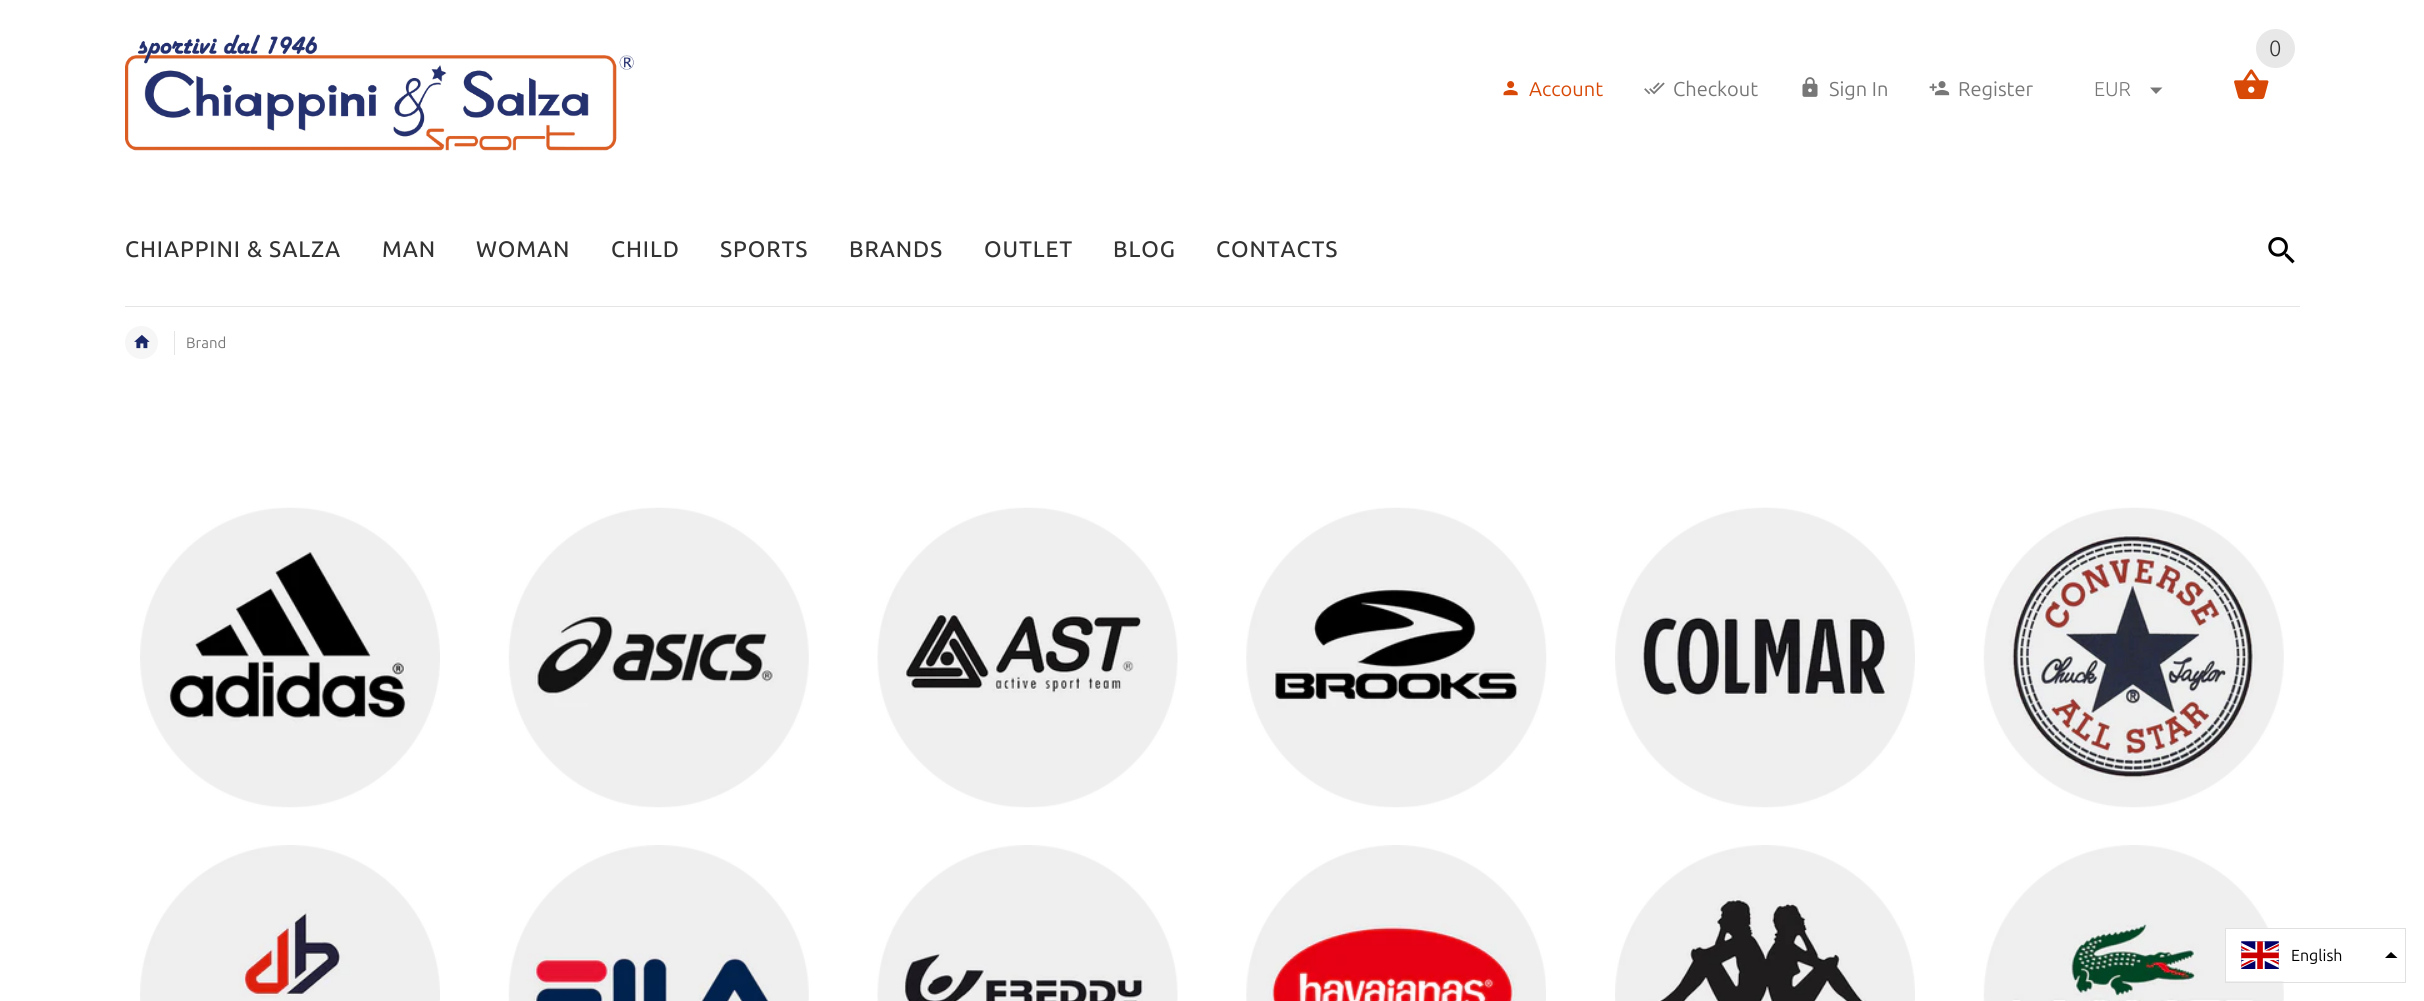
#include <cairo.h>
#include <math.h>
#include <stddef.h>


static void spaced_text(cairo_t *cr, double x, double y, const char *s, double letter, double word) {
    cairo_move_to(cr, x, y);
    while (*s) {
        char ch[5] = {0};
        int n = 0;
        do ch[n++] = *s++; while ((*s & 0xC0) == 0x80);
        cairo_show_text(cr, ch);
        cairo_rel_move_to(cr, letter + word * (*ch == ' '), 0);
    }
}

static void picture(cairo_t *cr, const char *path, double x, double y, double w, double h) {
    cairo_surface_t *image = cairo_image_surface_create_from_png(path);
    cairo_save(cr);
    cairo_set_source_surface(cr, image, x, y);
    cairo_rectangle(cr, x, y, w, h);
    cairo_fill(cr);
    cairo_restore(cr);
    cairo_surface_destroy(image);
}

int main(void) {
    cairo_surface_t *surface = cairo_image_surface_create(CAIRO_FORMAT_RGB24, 2424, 1001);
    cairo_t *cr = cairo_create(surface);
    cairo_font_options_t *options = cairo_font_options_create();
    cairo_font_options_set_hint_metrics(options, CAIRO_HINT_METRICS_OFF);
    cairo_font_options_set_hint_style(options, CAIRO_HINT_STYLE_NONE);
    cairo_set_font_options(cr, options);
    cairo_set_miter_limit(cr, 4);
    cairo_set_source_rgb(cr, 1, 1, 1);
    cairo_paint(cr);
    picture(cr, "img1.png", 125, 34, 509, 117);
    cairo_set_source_rgb(cr, 0.91, 0.91, 0.91);
    cairo_arc(cr, 2275.5, 48.5, 19.5, 0, 2 * M_PI);
    cairo_fill(cr);
    cairo_select_font_face(cr, "Ubuntu Light", CAIRO_FONT_SLANT_NORMAL, CAIRO_FONT_WEIGHT_NORMAL);
    cairo_set_font_size(cr, 22);
    cairo_set_source_rgb(cr, 0.2, 0.2, 0.2);
    cairo_move_to(cr, 2269, 56);
    cairo_show_text(cr, "0");
    picture(cr, "img2.png", 2234, 69, 35, 31);
    picture(cr, "img3.png", 1503, 81, 15, 15);
    cairo_select_font_face(cr, "Ubuntu", CAIRO_FONT_SLANT_NORMAL, CAIRO_FONT_WEIGHT_NORMAL);
    cairo_set_font_size(cr, 20);
    cairo_set_source_rgb(cr, 0.847, 0.286, 0.031);
    cairo_move_to(cr, 1529, 96);
    cairo_show_text(cr, "Account");
    picture(cr, "img4.png", 1644, 82, 21, 13);
    cairo_set_source_rgb(cr, 0.467, 0.467, 0.467);
    cairo_move_to(cr, 1673, 96);
    cairo_show_text(cr, "Checkout");
    picture(cr, "img5.png", 1802, 77, 16, 20);
    cairo_move_to(cr, 1829, 96);
    cairo_show_text(cr, "Sign In");
    picture(cr, "img6.png", 1929, 81, 21, 15);
    cairo_move_to(cr, 1958, 96);
    cairo_show_text(cr, "Register");
    cairo_select_font_face(cr, "Ubuntu Light", CAIRO_FONT_SLANT_NORMAL, CAIRO_FONT_WEIGHT_NORMAL);
    cairo_move_to(cr, 2094, 96);
    cairo_show_text(cr, "EUR");
    cairo_new_path(cr);
    cairo_move_to(cr, 2150, 87.5);
    cairo_line_to(cr, 2162.5, 87.5);
    cairo_line_to(cr, 2156, 94);
    cairo_close_path(cr);
    cairo_fill(cr);
    cairo_select_font_face(cr, "Ubuntu Medium", CAIRO_FONT_SLANT_NORMAL, CAIRO_FONT_WEIGHT_NORMAL);
    cairo_set_font_size(cr, 22.5);
    cairo_set_source_rgb(cr, 0.2, 0.2, 0.2);
    spaced_text(cr, 125, 257, "CHIAPPINI & SALZA", 0.9, 0);
    spaced_text(cr, 382, 257, "MAN", 0.9, 0);
    spaced_text(cr, 476, 257, "WOMAN", 0.9, 0);
    spaced_text(cr, 611, 257, "CHILD", 0.9, 0);
    spaced_text(cr, 720, 257, "SPORTS", 0.9, 0);
    spaced_text(cr, 849, 257, "BRANDS", 0.9, 0);
    spaced_text(cr, 984, 257, "OUTLET", 0.9, 0);
    spaced_text(cr, 1113, 257, "BLOG", 0.9, 0);
    spaced_text(cr, 1216, 257, "CONTACTS", 0.9, 0);
    picture(cr, "img7.png", 2268, 237, 27, 27);
    cairo_set_source_rgb(cr, 0.898, 0.898, 0.898);
    cairo_rectangle(cr, 125, 306, 2175, 1);
    cairo_fill(cr);
    cairo_set_source_rgb(cr, 0.961, 0.961, 0.961);
    cairo_arc(cr, 141.5, 342.5, 16.5, 0, 2 * M_PI);
    cairo_fill(cr);
    picture(cr, "img8.png", 134, 334, 16, 15);
    cairo_set_source_rgb(cr, 0.898, 0.898, 0.898);
    cairo_rectangle(cr, 174, 331, 1, 24);
    cairo_fill(cr);
    cairo_select_font_face(cr, "Ubuntu", CAIRO_FONT_SLANT_NORMAL, CAIRO_FONT_WEIGHT_NORMAL);
    cairo_set_font_size(cr, 15);
    cairo_set_source_rgb(cr, 0.467, 0.467, 0.467);
    cairo_move_to(cr, 186, 348);
    cairo_show_text(cr, "Brand");
    picture(cr, "img9.png", 140, 507, 300, 301);
    picture(cr, "img10.png", 508, 507, 301, 301);
    picture(cr, "img11.png", 877, 507, 301, 301);
    picture(cr, "img12.png", 1246, 507, 301, 301);
    picture(cr, "img13.png", 1615, 507, 300, 301);
    picture(cr, "img14.png", 1983, 507, 301, 301);
    picture(cr, "img15.png", 140, 845, 300, 156);
    picture(cr, "img16.png", 508, 845, 301, 156);
    picture(cr, "img17.png", 877, 845, 301, 156);
    picture(cr, "img18.png", 1246, 845, 300, 156);
    picture(cr, "img19.png", 1615, 845, 300, 156);
    picture(cr, "img20.png", 1983, 845, 301, 156);
    cairo_rectangle(cr, 2225.5, 928.5, 180, 54);
    cairo_set_source_rgb(cr, 0.878, 0.878, 0.878);
    cairo_set_line_width(cr, 1);
    cairo_stroke(cr);
    cairo_set_source_rgb(cr, 1, 1, 1);
    cairo_rectangle(cr, 2226, 929, 58, 52);
    cairo_fill(cr);
    picture(cr, "img21.png", 2241, 941, 38, 28);
    cairo_set_font_size(cr, 16);
    cairo_set_source_rgb(cr, 0, 0, 0);
    cairo_move_to(cr, 2291, 961);
    cairo_show_text(cr, "English");
    cairo_set_fill_rule(cr, CAIRO_FILL_RULE_EVEN_ODD);
    cairo_new_path(cr);
    cairo_move_to(cr, 2385, 958);
    cairo_line_to(cr, 2391, 952);
    cairo_line_to(cr, 2397.5, 958);
    cairo_close_path(cr);
    cairo_fill(cr);
    cairo_surface_write_to_png(surface, "page.png");
    cairo_font_options_destroy(options);
    cairo_destroy(cr);
    cairo_surface_destroy(surface);
    return 0;
}
